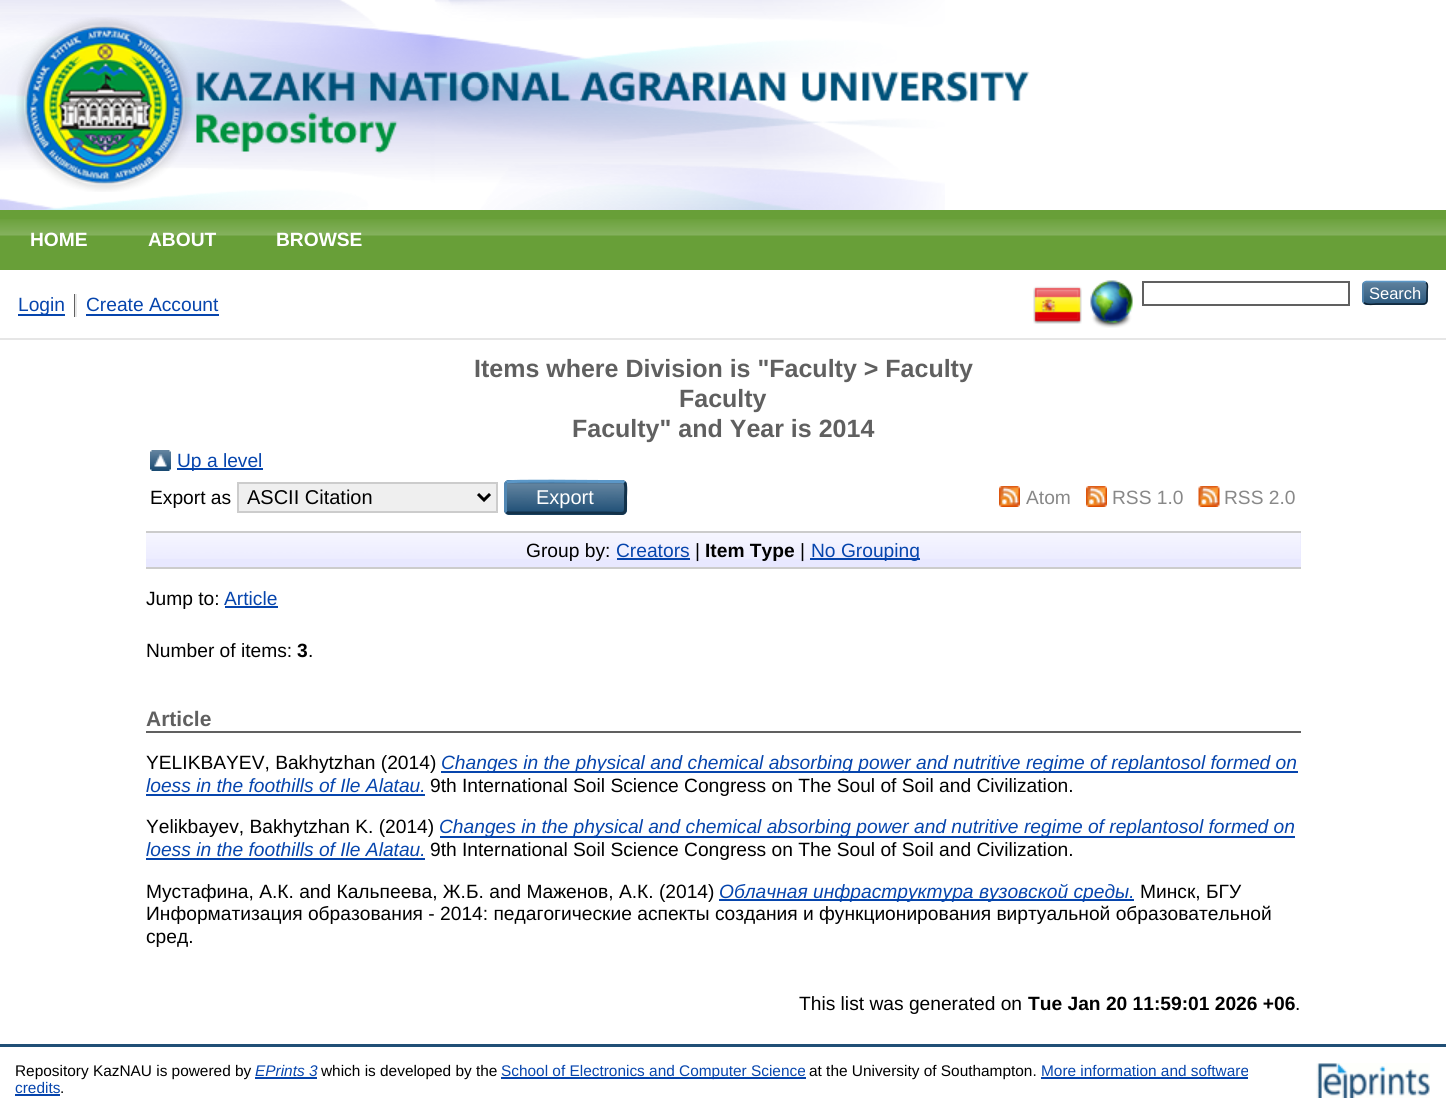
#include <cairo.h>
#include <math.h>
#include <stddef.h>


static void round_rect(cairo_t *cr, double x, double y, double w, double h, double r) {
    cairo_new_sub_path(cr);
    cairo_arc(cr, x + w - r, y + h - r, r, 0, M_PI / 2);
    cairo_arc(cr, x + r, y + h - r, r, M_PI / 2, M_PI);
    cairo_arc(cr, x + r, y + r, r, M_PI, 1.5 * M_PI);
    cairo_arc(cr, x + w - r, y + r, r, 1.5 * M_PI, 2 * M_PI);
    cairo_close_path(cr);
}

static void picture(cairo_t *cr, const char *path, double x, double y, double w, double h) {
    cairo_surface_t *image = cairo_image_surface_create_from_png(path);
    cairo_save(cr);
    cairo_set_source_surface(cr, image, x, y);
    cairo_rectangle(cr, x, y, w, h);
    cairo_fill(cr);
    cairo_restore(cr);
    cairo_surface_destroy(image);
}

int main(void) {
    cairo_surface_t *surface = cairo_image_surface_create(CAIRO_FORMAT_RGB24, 1446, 1098);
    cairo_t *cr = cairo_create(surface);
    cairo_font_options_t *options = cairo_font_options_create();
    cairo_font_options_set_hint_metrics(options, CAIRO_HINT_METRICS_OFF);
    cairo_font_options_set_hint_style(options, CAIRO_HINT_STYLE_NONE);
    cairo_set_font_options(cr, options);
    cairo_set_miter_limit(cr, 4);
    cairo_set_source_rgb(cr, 1, 1, 1);
    cairo_paint(cr);
    picture(cr, "img1.png", 0, 0, 945, 210);
    picture(cr, "img2.png", 16, 17, 1014, 175);
    cairo_set_source_rgb(cr, 0.408, 0.624, 0.22);
    cairo_rectangle(cr, 0, 210, 1446, 60);
    cairo_fill(cr);
    picture(cr, "img3.png", 0, 219, 1446, 17);
    cairo_select_font_face(cr, "Liberation Sans", CAIRO_FONT_SLANT_NORMAL, CAIRO_FONT_WEIGHT_BOLD);
    cairo_set_font_size(cr, 19.2);
    cairo_set_source_rgb(cr, 1, 1, 1);
    cairo_move_to(cr, 30, 246);
    cairo_show_text(cr, "HOME");
    cairo_move_to(cr, 148, 246);
    cairo_show_text(cr, "ABOUT");
    cairo_move_to(cr, 276, 246);
    cairo_show_text(cr, "BROWSE");
    cairo_set_source_rgb(cr, 0.902, 0.902, 0.902);
    cairo_rectangle(cr, 0, 338, 1446, 2);
    cairo_fill(cr);
    picture(cr, "img4.png", 1033, 286, 49, 38);
    picture(cr, "img5.png", 1090, 280, 43, 48);
    cairo_rectangle(cr, 1143, 282, 206, 23);
    cairo_set_source_rgb(cr, 0.376, 0.376, 0.376);
    cairo_stroke(cr);
    cairo_set_source_rgb(cr, 0.122, 0.31, 0.463);
    round_rect(cr, 1362, 281, 66, 24, 5);
    cairo_fill(cr);
    picture(cr, "img6.png", 1362, 281, 66, 23);
    cairo_new_path(cr);
    cairo_move_to(cr, 1364, 282.5);
    cairo_line_to(cr, 1366, 281.5);
    cairo_line_to(cr, 1424, 281.5);
    cairo_line_to(cr, 1426, 282.5);
    cairo_set_source_rgb(cr, 0.357, 0.592, 0.78);
    cairo_set_line_width(cr, 1.5);
    cairo_stroke(cr);
    cairo_new_path(cr);
    cairo_move_to(cr, 1426, 282.5);
    cairo_curve_to(cr, 1428.5, 284.5, 1427, 289.5, 1427, 292.5);
    cairo_curve_to(cr, 1427, 305.5, 1428, 304, 1414, 304);
    cairo_line_to(cr, 1376, 304);
    cairo_curve_to(cr, 1375.5, 304, 1366.5, 305.5, 1364, 302.5);
    cairo_set_source_rgb(cr, 0.051, 0.129, 0.192);
    cairo_stroke(cr);
    cairo_new_path(cr);
    cairo_move_to(cr, 1364, 302.5);
    cairo_curve_to(cr, 1363, 302, 1363, 301, 1363, 300);
    cairo_line_to(cr, 1363, 285);
    cairo_curve_to(cr, 1363, 284, 1363, 283, 1364, 282.5);
    cairo_set_source_rgb(cr, 0.322, 0.529, 0.702);
    cairo_stroke(cr);
    cairo_select_font_face(cr, "Liberation Sans", CAIRO_FONT_SLANT_NORMAL, CAIRO_FONT_WEIGHT_NORMAL);
    cairo_set_font_size(cr, 16.5);
    cairo_set_source_rgb(cr, 1, 1, 1);
    cairo_move_to(cr, 1369, 299);
    cairo_show_text(cr, "Search");
    cairo_set_source_rgb(cr, 0.024, 0.271, 0.678);
    cairo_rectangle(cr, 18, 314, 47, 2);
    cairo_fill(cr);
    cairo_set_font_size(cr, 19.2);
    cairo_move_to(cr, 18, 311);
    cairo_show_text(cr, "Login");
    cairo_set_source_rgb(cr, 0.376, 0.376, 0.376);
    cairo_rectangle(cr, 74, 294, 1, 23);
    cairo_fill(cr);
    cairo_set_source_rgb(cr, 0.024, 0.271, 0.678);
    cairo_move_to(cr, 86, 311);
    cairo_show_text(cr, "Create Account");
    cairo_set_source_rgb(cr, 0.91, 0.91, 0.91);
    cairo_rectangle(cr, 75, 294, 2, 23);
    cairo_fill(cr);
    cairo_set_source_rgb(cr, 0.024, 0.271, 0.678);
    cairo_rectangle(cr, 86, 314, 133, 2);
    cairo_fill(cr);
    cairo_select_font_face(cr, "Liberation Sans", CAIRO_FONT_SLANT_NORMAL, CAIRO_FONT_WEIGHT_BOLD);
    cairo_set_font_size(cr, 25);
    cairo_set_source_rgb(cr, 0.376, 0.376, 0.376);
    cairo_move_to(cr, 474, 377);
    cairo_show_text(cr, "Items where Division is \"Faculty > Faculty");
    cairo_move_to(cr, 679, 407);
    cairo_show_text(cr, "Faculty");
    cairo_move_to(cr, 572, 437);
    cairo_show_text(cr, "Faculty\" and Year is 2014");
    picture(cr, "img7.png", 150, 450, 21, 21);
    cairo_set_source_rgb(cr, 0.024, 0.271, 0.678);
    cairo_rectangle(cr, 177, 468, 86, 2);
    cairo_fill(cr);
    cairo_select_font_face(cr, "Liberation Sans", CAIRO_FONT_SLANT_NORMAL, CAIRO_FONT_WEIGHT_NORMAL);
    cairo_set_font_size(cr, 19.2);
    cairo_move_to(cr, 177, 467);
    cairo_show_text(cr, "Up a level");
    cairo_set_source_rgb(cr, 0, 0, 0);
    cairo_move_to(cr, 150, 504);
    cairo_show_text(cr, "Export as");
    cairo_set_source_rgb(cr, 0.937, 0.937, 0.937);
    cairo_rectangle(cr, 238, 483, 259, 29);
    cairo_fill_preserve(cr);
    cairo_set_source_rgb(cr, 0.8, 0.8, 0.8);
    cairo_set_line_width(cr, 2);
    cairo_stroke(cr);
    cairo_new_path(cr);
    cairo_move_to(cr, 478, 494);
    cairo_line_to(cr, 484, 500);
    cairo_line_to(cr, 490, 494);
    cairo_set_source_rgb(cr, 0, 0, 0);
    cairo_set_line_width(cr, 3);
    cairo_stroke(cr);
    cairo_set_font_size(cr, 20);
    cairo_move_to(cr, 247, 504);
    cairo_show_text(cr, "ASCII Citation");
    cairo_set_source_rgb(cr, 0.122, 0.31, 0.463);
    round_rect(cr, 504, 480, 123, 35, 5);
    cairo_fill(cr);
    picture(cr, "img8.png", 504, 482, 123, 29);
    cairo_new_path(cr);
    cairo_move_to(cr, 506.5, 482.5);
    cairo_line_to(cr, 507, 482);
    cairo_curve_to(cr, 509, 480.5, 593.5, 481.5, 603.5, 481.5);
    cairo_line_to(cr, 622.5, 481.5);
    cairo_line_to(cr, 624.5, 482.5);
    cairo_set_source_rgb(cr, 0.357, 0.592, 0.78);
    cairo_stroke(cr);
    cairo_new_path(cr);
    cairo_move_to(cr, 624.5, 482.5);
    cairo_curve_to(cr, 626.5, 484.5, 625.5, 494.5, 625.5, 497);
    cairo_curve_to(cr, 625.5, 518, 628, 513, 603.5, 513);
    cairo_line_to(cr, 508.5, 513);
    cairo_line_to(cr, 506.5, 512);
    cairo_set_source_rgb(cr, 0.075, 0.196, 0.29);
    cairo_stroke(cr);
    cairo_new_path(cr);
    cairo_move_to(cr, 506.5, 512);
    cairo_curve_to(cr, 506, 511.5, 505.5, 511, 505.5, 510);
    cairo_line_to(cr, 505.5, 484.5);
    cairo_curve_to(cr, 505.5, 483.5, 506, 483, 506.5, 482.5);
    cairo_set_source_rgb(cr, 0.322, 0.529, 0.702);
    cairo_stroke(cr);
    cairo_set_source_rgb(cr, 1, 1, 1);
    cairo_move_to(cr, 536, 504);
    cairo_show_text(cr, "Export");
    picture(cr, "img9.png", 999, 486, 21, 21);
    cairo_set_font_size(cr, 19.2);
    cairo_set_source_rgb(cr, 0.533, 0.533, 0.533);
    cairo_move_to(cr, 1026, 504);
    cairo_show_text(cr, "Atom");
    picture(cr, "img10.png", 1086, 486, 21, 21);
    cairo_move_to(cr, 1112, 504);
    cairo_show_text(cr, "RSS 1.0");
    picture(cr, "img11.png", 1198, 486, 22, 21);
    cairo_move_to(cr, 1224, 504);
    cairo_show_text(cr, "RSS 2.0");
    cairo_set_source_rgb(cr, 0.91, 0.91, 1);
    cairo_rectangle(cr, 146, 533, 1155, 34);
    cairo_fill(cr);
    picture(cr, "img12.png", 146, 533, 1155, 26);
    cairo_set_source_rgb(cr, 0.8, 0.8, 0.8);
    cairo_rectangle(cr, 146, 531, 1155, 2);
    cairo_fill(cr);
    cairo_rectangle(cr, 146, 567, 1155, 2);
    cairo_fill(cr);
    cairo_set_source_rgb(cr, 0, 0, 0);
    cairo_move_to(cr, 526, 557);
    cairo_show_text(cr, "Group by:");
    cairo_set_source_rgb(cr, 0.024, 0.271, 0.678);
    cairo_move_to(cr, 616, 557);
    cairo_show_text(cr, "Creators");
    cairo_rectangle(cr, 617, 558, 73, 2);
    cairo_fill(cr);
    cairo_set_source_rgb(cr, 0, 0, 0);
    cairo_move_to(cr, 695, 557);
    cairo_show_text(cr, "|");
    cairo_select_font_face(cr, "Liberation Sans", CAIRO_FONT_SLANT_NORMAL, CAIRO_FONT_WEIGHT_BOLD);
    cairo_move_to(cr, 705, 557);
    cairo_show_text(cr, "Item Type");
    cairo_select_font_face(cr, "Liberation Sans", CAIRO_FONT_SLANT_NORMAL, CAIRO_FONT_WEIGHT_NORMAL);
    cairo_move_to(cr, 800, 557);
    cairo_show_text(cr, "|");
    cairo_set_source_rgb(cr, 0.024, 0.271, 0.678);
    cairo_rectangle(cr, 810, 558, 110, 2);
    cairo_fill(cr);
    cairo_move_to(cr, 811, 557);
    cairo_show_text(cr, "No Grouping");
    cairo_set_source_rgb(cr, 0, 0, 0);
    cairo_move_to(cr, 146, 605);
    cairo_show_text(cr, "Jump to:");
    cairo_set_source_rgb(cr, 0.024, 0.271, 0.678);
    cairo_move_to(cr, 224, 605);
    cairo_show_text(cr, "Article");
    cairo_rectangle(cr, 225, 606, 53, 2);
    cairo_fill(cr);
    cairo_set_source_rgb(cr, 0, 0, 0);
    cairo_move_to(cr, 146, 657);
    cairo_show_text(cr, "Number of items:");
    cairo_select_font_face(cr, "Liberation Sans", CAIRO_FONT_SLANT_NORMAL, CAIRO_FONT_WEIGHT_BOLD);
    cairo_move_to(cr, 297, 657);
    cairo_show_text(cr, "3");
    cairo_select_font_face(cr, "Liberation Sans", CAIRO_FONT_SLANT_NORMAL, CAIRO_FONT_WEIGHT_NORMAL);
    cairo_move_to(cr, 308, 657);
    cairo_show_text(cr, ".");
    cairo_set_source_rgb(cr, 0.376, 0.376, 0.376);
    cairo_rectangle(cr, 146, 731, 1155, 2);
    cairo_fill(cr);
    cairo_select_font_face(cr, "Liberation Sans", CAIRO_FONT_SLANT_NORMAL, CAIRO_FONT_WEIGHT_BOLD);
    cairo_set_font_size(cr, 21);
    cairo_move_to(cr, 146, 726);
    cairo_show_text(cr, "Article");
    cairo_select_font_face(cr, "Liberation Sans", CAIRO_FONT_SLANT_NORMAL, CAIRO_FONT_WEIGHT_NORMAL);
    cairo_set_font_size(cr, 19.2);
    cairo_set_source_rgb(cr, 0, 0, 0);
    cairo_move_to(cr, 146, 769);
    cairo_show_text(cr, "YELIKBAYEV, Bakhytzhan (2014)");
    cairo_set_source_rgb(cr, 0.024, 0.271, 0.678);
    cairo_rectangle(cr, 441, 771, 857, 2);
    cairo_fill(cr);
    cairo_select_font_face(cr, "Liberation Sans", CAIRO_FONT_SLANT_ITALIC, CAIRO_FONT_WEIGHT_NORMAL);
    cairo_move_to(cr, 441, 769);
    cairo_show_text(cr, "Changes in the physical and chemical absorbing power and nutritive regime of replantosol formed on");
    cairo_move_to(cr, 146, 792);
    cairo_show_text(cr, "loess in the foothills of Ile Alatau.");
    cairo_rectangle(cr, 146, 794, 279, 2);
    cairo_fill(cr);
    cairo_select_font_face(cr, "Liberation Sans", CAIRO_FONT_SLANT_NORMAL, CAIRO_FONT_WEIGHT_NORMAL);
    cairo_set_source_rgb(cr, 0, 0, 0);
    cairo_move_to(cr, 430, 792);
    cairo_show_text(cr, "9th International Soil Science Congress on The Soul of Soil and Civilization.");
    cairo_move_to(cr, 146, 833);
    cairo_show_text(cr, "Yelikbayev, Bakhytzhan K. (2014)");
    cairo_set_source_rgb(cr, 0.024, 0.271, 0.678);
    cairo_rectangle(cr, 440, 836, 855, 2);
    cairo_fill(cr);
    cairo_select_font_face(cr, "Liberation Sans", CAIRO_FONT_SLANT_ITALIC, CAIRO_FONT_WEIGHT_NORMAL);
    cairo_move_to(cr, 439, 833);
    cairo_show_text(cr, "Changes in the physical and chemical absorbing power and nutritive regime of replantosol formed on");
    cairo_move_to(cr, 146, 856);
    cairo_show_text(cr, "loess in the foothills of Ile Alatau.");
    cairo_rectangle(cr, 146, 858, 279, 2);
    cairo_fill(cr);
    cairo_select_font_face(cr, "Liberation Sans", CAIRO_FONT_SLANT_NORMAL, CAIRO_FONT_WEIGHT_NORMAL);
    cairo_set_source_rgb(cr, 0, 0, 0);
    cairo_move_to(cr, 430, 856);
    cairo_show_text(cr, "9th International Soil Science Congress on The Soul of Soil and Civilization.");
    cairo_move_to(cr, 146, 898);
    cairo_show_text(cr, "Мустафина, А.К. and Кальпеева, Ж.Б. and Маженов, А.К. (2014)");
    cairo_set_source_rgb(cr, 0.024, 0.271, 0.678);
    cairo_rectangle(cr, 719, 899, 415, 2);
    cairo_fill(cr);
    cairo_select_font_face(cr, "Liberation Sans", CAIRO_FONT_SLANT_ITALIC, CAIRO_FONT_WEIGHT_NORMAL);
    cairo_move_to(cr, 719, 898);
    cairo_show_text(cr, "Облачная инфраструктура вузовской среды.");
    cairo_select_font_face(cr, "Liberation Sans", CAIRO_FONT_SLANT_NORMAL, CAIRO_FONT_WEIGHT_NORMAL);
    cairo_set_source_rgb(cr, 0, 0, 0);
    cairo_move_to(cr, 1140, 898);
    cairo_show_text(cr, "Минск, БГУ");
    cairo_move_to(cr, 146, 920);
    cairo_show_text(cr, "Информатизация образования - 2014: педагогические аспекты создания и функционирования виртуальной образовательной");
    cairo_move_to(cr, 146, 943);
    cairo_show_text(cr, "сред.");
    cairo_move_to(cr, 799, 1010);
    cairo_show_text(cr, "This list was generated on");
    cairo_select_font_face(cr, "Liberation Sans", CAIRO_FONT_SLANT_NORMAL, CAIRO_FONT_WEIGHT_BOLD);
    cairo_move_to(cr, 1028, 1010);
    cairo_show_text(cr, "Tue Jan 20 11:59:01 2026 +06");
    cairo_select_font_face(cr, "Liberation Sans", CAIRO_FONT_SLANT_NORMAL, CAIRO_FONT_WEIGHT_NORMAL);
    cairo_move_to(cr, 1295, 1010);
    cairo_show_text(cr, ".");
    cairo_set_source_rgb(cr, 0.125, 0.31, 0.463);
    cairo_rectangle(cr, 0, 1044, 1446, 3);
    cairo_fill(cr);
    cairo_set_font_size(cr, 15.4);
    cairo_set_source_rgb(cr, 0, 0, 0);
    cairo_move_to(cr, 15, 1076);
    cairo_show_text(cr, "Repository KazNAU is powered by");
    cairo_select_font_face(cr, "Liberation Sans", CAIRO_FONT_SLANT_ITALIC, CAIRO_FONT_WEIGHT_NORMAL);
    cairo_set_source_rgb(cr, 0.024, 0.271, 0.678);
    cairo_move_to(cr, 255, 1076);
    cairo_show_text(cr, "EPrints 3");
    cairo_rectangle(cr, 255, 1077, 62, 2);
    cairo_fill(cr);
    cairo_select_font_face(cr, "Liberation Sans", CAIRO_FONT_SLANT_NORMAL, CAIRO_FONT_WEIGHT_NORMAL);
    cairo_set_source_rgb(cr, 0, 0, 0);
    cairo_move_to(cr, 321, 1076);
    cairo_show_text(cr, "which is developed by the");
    cairo_set_source_rgb(cr, 0.024, 0.271, 0.678);
    cairo_rectangle(cr, 501, 1077, 305, 2);
    cairo_fill(cr);
    cairo_move_to(cr, 501, 1076);
    cairo_show_text(cr, "School of Electronics and Computer Science");
    cairo_set_source_rgb(cr, 0, 0, 0);
    cairo_move_to(cr, 809, 1076);
    cairo_show_text(cr, "at the University of Southampton.");
    cairo_set_source_rgb(cr, 0.024, 0.271, 0.678);
    cairo_move_to(cr, 1041, 1076);
    cairo_show_text(cr, "More information and software");
    cairo_rectangle(cr, 1041, 1077, 207, 2);
    cairo_fill(cr);
    cairo_move_to(cr, 15, 1093);
    cairo_show_text(cr, "credits");
    cairo_rectangle(cr, 15, 1094, 45, 2);
    cairo_fill(cr);
    cairo_set_source_rgb(cr, 0, 0, 0);
    cairo_move_to(cr, 60, 1093);
    cairo_show_text(cr, ".");
    picture(cr, "img13.png", 1316, 1063, 114, 35);
    cairo_surface_write_to_png(surface, "page.png");
    cairo_font_options_destroy(options);
    cairo_destroy(cr);
    cairo_surface_destroy(surface);
    return 0;
}
